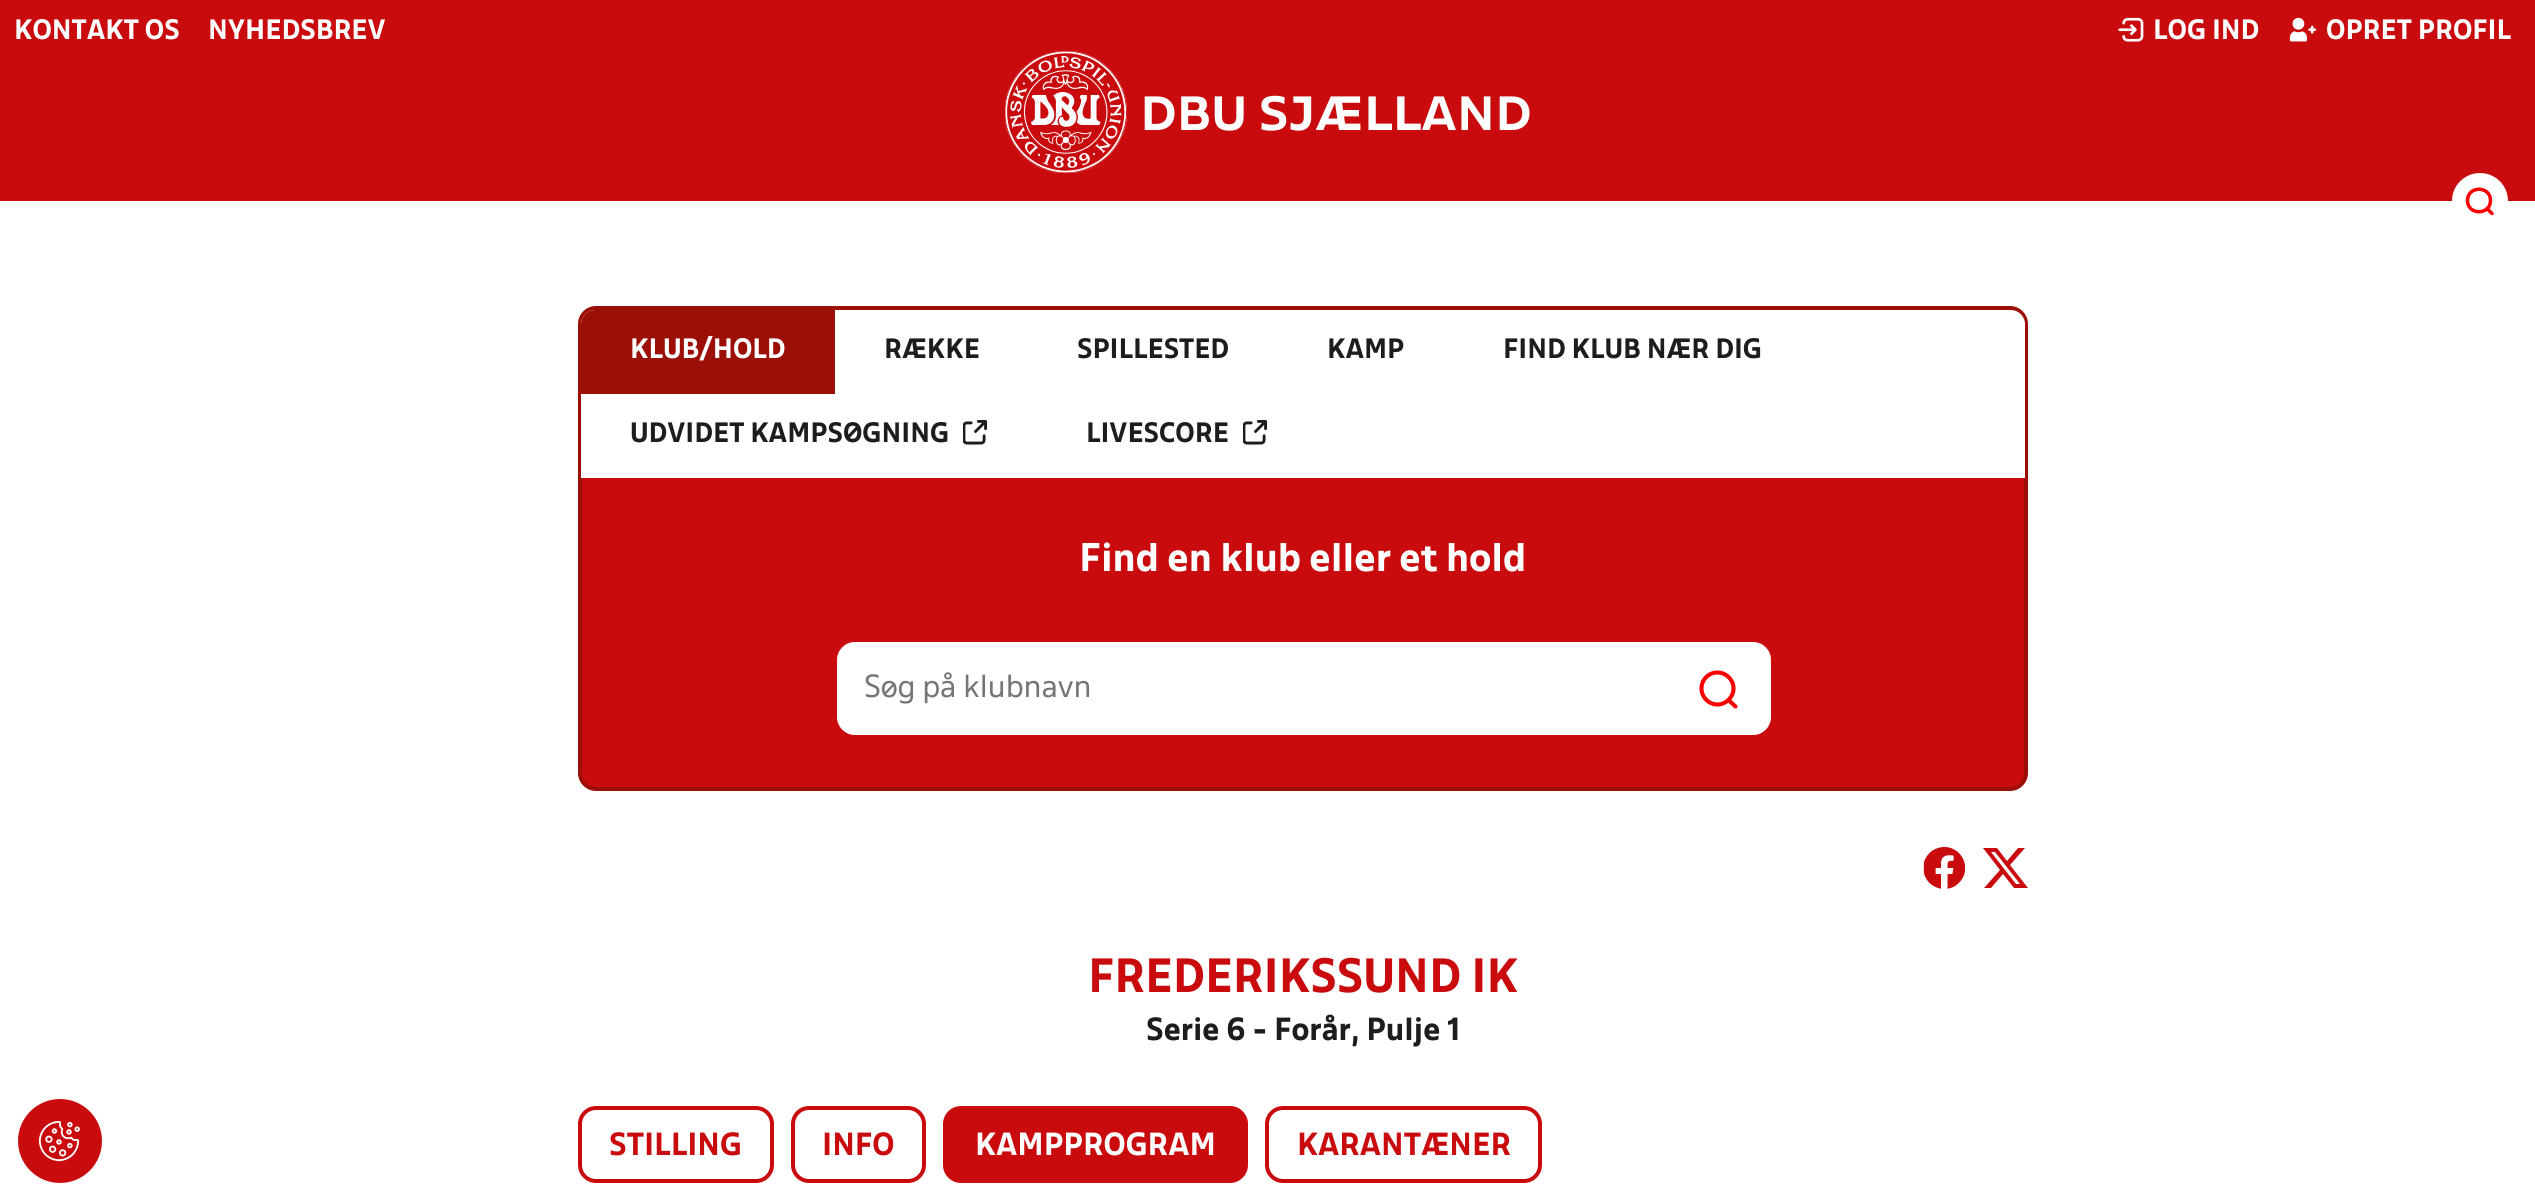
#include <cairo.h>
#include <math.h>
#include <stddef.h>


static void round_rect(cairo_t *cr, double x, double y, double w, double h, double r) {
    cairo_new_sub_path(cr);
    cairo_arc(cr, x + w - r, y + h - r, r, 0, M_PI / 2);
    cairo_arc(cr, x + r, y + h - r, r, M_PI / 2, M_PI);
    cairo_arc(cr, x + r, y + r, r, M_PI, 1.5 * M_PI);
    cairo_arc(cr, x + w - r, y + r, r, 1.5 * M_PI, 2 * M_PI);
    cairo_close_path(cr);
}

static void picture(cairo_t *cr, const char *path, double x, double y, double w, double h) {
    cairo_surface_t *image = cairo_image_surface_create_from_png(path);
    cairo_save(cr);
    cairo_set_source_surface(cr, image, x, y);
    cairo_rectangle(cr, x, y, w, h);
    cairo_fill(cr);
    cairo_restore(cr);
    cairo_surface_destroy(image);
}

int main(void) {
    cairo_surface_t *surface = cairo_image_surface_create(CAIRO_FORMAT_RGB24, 2535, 1199);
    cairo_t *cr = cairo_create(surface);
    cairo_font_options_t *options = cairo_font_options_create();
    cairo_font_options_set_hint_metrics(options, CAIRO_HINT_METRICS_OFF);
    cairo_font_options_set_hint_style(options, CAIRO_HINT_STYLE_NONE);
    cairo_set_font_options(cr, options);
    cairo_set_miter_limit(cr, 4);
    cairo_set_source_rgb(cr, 1, 1, 1);
    cairo_paint(cr);
    cairo_set_source_rgb(cr, 0.788, 0.043, 0.055);
    cairo_rectangle(cr, 0, 0, 2535, 201);
    cairo_fill(cr);
    cairo_select_font_face(cr, "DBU", CAIRO_FONT_SLANT_NORMAL, CAIRO_FONT_WEIGHT_BOLD);
    cairo_set_font_size(cr, 24.5);
    cairo_set_source_rgb(cr, 1, 1, 1);
    cairo_move_to(cr, 14, 39);
    cairo_show_text(cr, "KONTAKT OS");
    cairo_move_to(cr, 208, 39);
    cairo_show_text(cr, "NYHEDSBREV");
    picture(cr, "img1.png", 2118, 17, 26, 25);
    cairo_move_to(cr, 2153, 39);
    cairo_show_text(cr, "LOG IND");
    picture(cr, "img2.png", 2289, 17, 28, 25);
    cairo_move_to(cr, 2326, 39);
    cairo_show_text(cr, "OPRET PROFIL");
    picture(cr, "img3.png", 1005, 51, 122, 122);
    cairo_select_font_face(cr, "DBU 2", CAIRO_FONT_SLANT_NORMAL, CAIRO_FONT_WEIGHT_BOLD);
    cairo_set_font_size(cr, 42);
    cairo_move_to(cr, 1140, 130);
    cairo_show_text(cr, "DBU SJÆLLAND");
    cairo_new_path(cr);
    cairo_arc(cr, 2480, 201, 28, 0, 2 * M_PI);
    cairo_fill(cr);
    cairo_new_path(cr);
    cairo_move_to(cr, 2487, 208.5);
    cairo_line_to(cr, 2492, 213.5);
    cairo_move_to(cr, 2490.5, 200.5);
    cairo_curve_to(cr, 2490.5, 215.5, 2467.5, 215.5, 2467.5, 200.5);
    cairo_curve_to(cr, 2467.5, 185.5, 2490.5, 185.5, 2490.5, 200.5);
    cairo_close_path(cr);
    cairo_set_source_rgb(cr, 0.984, 0, 0);
    cairo_set_line_width(cr, 3.5);
    cairo_set_line_cap(cr, CAIRO_LINE_CAP_ROUND);
    cairo_stroke(cr);
    cairo_set_source_rgb(cr, 0.788, 0.043, 0.055);
    cairo_arc(cr, 60, 1141, 42, 0, 2 * M_PI);
    cairo_fill(cr);
    picture(cr, "img4.png", 39, 1121, 41, 41);
    round_rect(cr, 580, 308, 1446, 481, 16);
    cairo_fill_preserve(cr);
    cairo_set_source_rgb(cr, 0.612, 0.059, 0.024);
    cairo_set_line_width(cr, 4);
    cairo_set_line_cap(cr, CAIRO_LINE_CAP_BUTT);
    cairo_stroke(cr);
    cairo_set_source_rgb(cr, 1, 1, 1);
    cairo_new_path(cr);
    cairo_move_to(cr, 595, 310);
    cairo_line_to(cr, 2011, 310);
    cairo_curve_to(cr, 2018.5, 310, 2025, 316.5, 2025, 324);
    cairo_line_to(cr, 2025, 478);
    cairo_line_to(cr, 581, 478);
    cairo_line_to(cr, 581, 324);
    cairo_curve_to(cr, 581, 316.5, 587.5, 310, 595, 310);
    cairo_close_path(cr);
    cairo_fill(cr);
    cairo_set_source_rgb(cr, 0.612, 0.059, 0.024);
    cairo_new_path(cr);
    cairo_move_to(cr, 595, 310);
    cairo_line_to(cr, 835, 310);
    cairo_line_to(cr, 835, 394);
    cairo_line_to(cr, 581, 394);
    cairo_line_to(cr, 581, 324);
    cairo_curve_to(cr, 581, 316.5, 587.5, 310, 595, 310);
    cairo_close_path(cr);
    cairo_fill(cr);
    cairo_select_font_face(cr, "DBU", CAIRO_FONT_SLANT_NORMAL, CAIRO_FONT_WEIGHT_BOLD);
    cairo_set_font_size(cr, 24.5);
    cairo_set_source_rgb(cr, 1, 1, 1);
    cairo_move_to(cr, 630, 358);
    cairo_show_text(cr, "KLUB/HOLD");
    cairo_set_source_rgb(cr, 0.114, 0.114, 0.114);
    cairo_move_to(cr, 884, 358);
    cairo_show_text(cr, "RÆKKE");
    cairo_move_to(cr, 1077, 358);
    cairo_show_text(cr, "SPILLESTED");
    cairo_move_to(cr, 1327, 358);
    cairo_show_text(cr, "KAMP");
    cairo_move_to(cr, 1503, 358);
    cairo_show_text(cr, "FIND KLUB NÆR DIG");
    cairo_move_to(cr, 630, 442);
    cairo_show_text(cr, "UDVIDET KAMPSØGNING");
    picture(cr, "img5.png", 963, 420, 24, 25);
    cairo_move_to(cr, 1086, 442);
    cairo_show_text(cr, "LIVESCORE");
    picture(cr, "img5.png", 1243, 420, 24, 25);
    cairo_set_font_size(cr, 35);
    cairo_set_source_rgb(cr, 1, 1, 1);
    cairo_move_to(cr, 1079, 571);
    cairo_show_text(cr, "Find en klub eller et hold");
    round_rect(cr, 837, 642, 934, 93, 18);
    cairo_fill(cr);
    cairo_select_font_face(cr, "DBU", CAIRO_FONT_SLANT_NORMAL, CAIRO_FONT_WEIGHT_NORMAL);
    cairo_set_font_size(cr, 28);
    cairo_set_source_rgb(cr, 0.459, 0.459, 0.459);
    cairo_move_to(cr, 864, 697);
    cairo_show_text(cr, "Søg på klubnavn");
    cairo_new_path(cr);
    cairo_move_to(cr, 1728.5, 700);
    cairo_line_to(cr, 1735.5, 706.5);
    cairo_move_to(cr, 1733.5, 688.5);
    cairo_curve_to(cr, 1733.5, 697, 1726, 704.5, 1717.5, 704.5);
    cairo_curve_to(cr, 1708.5, 704.5, 1701.5, 697, 1701.5, 688.5);
    cairo_curve_to(cr, 1701.5, 679.5, 1708.5, 672.5, 1717.5, 672.5);
    cairo_curve_to(cr, 1726, 672.5, 1733.5, 679.5, 1733.5, 688.5);
    cairo_close_path(cr);
    cairo_set_source_rgb(cr, 0.984, 0, 0);
    cairo_set_line_width(cr, 4.1);
    cairo_set_line_cap(cr, CAIRO_LINE_CAP_ROUND);
    cairo_stroke(cr);
    picture(cr, "img6.png", 1923, 847, 42, 42);
    cairo_set_source_rgb(cr, 0.788, 0.043, 0.055);
    cairo_new_path(cr);
    cairo_move_to(cr, 2018, 848);
    cairo_line_to(cr, 2025, 848);
    cairo_line_to(cr, 2010, 865);
    cairo_line_to(cr, 2028, 888);
    cairo_line_to(cr, 2014, 888);
    cairo_line_to(cr, 2003, 874);
    cairo_line_to(cr, 1991, 888);
    cairo_line_to(cr, 1984, 888);
    cairo_line_to(cr, 2000, 870);
    cairo_line_to(cr, 1983, 848);
    cairo_line_to(cr, 1997, 848);
    cairo_line_to(cr, 2007, 861);
    cairo_close_path(cr);
    cairo_move_to(cr, 2016, 884);
    cairo_line_to(cr, 2020, 884);
    cairo_line_to(cr, 1995, 852);
    cairo_line_to(cr, 1991, 852);
    cairo_close_path(cr);
    cairo_fill(cr);
    cairo_select_font_face(cr, "DBU", CAIRO_FONT_SLANT_NORMAL, CAIRO_FONT_WEIGHT_BOLD);
    cairo_set_font_size(cr, 42);
    cairo_move_to(cr, 1088, 992);
    cairo_show_text(cr, "FREDERIKSSUND IK");
    cairo_set_font_size(cr, 28);
    cairo_set_source_rgb(cr, 0.114, 0.114, 0.114);
    cairo_move_to(cr, 1146, 1040);
    cairo_show_text(cr, "Serie 6 - Forår, Pulje 1");
    round_rect(cr, 580, 1108, 192, 73, 16);
    cairo_set_source_rgb(cr, 0.788, 0.043, 0.055);
    cairo_set_line_width(cr, 4);
    cairo_set_line_cap(cr, CAIRO_LINE_CAP_BUTT);
    cairo_stroke(cr);
    cairo_move_to(cr, 609, 1155);
    cairo_show_text(cr, "STILLING");
    round_rect(cr, 793, 1108, 131, 73, 16);
    cairo_stroke(cr);
    cairo_move_to(cr, 822, 1155);
    cairo_show_text(cr, "INFO");
    round_rect(cr, 945, 1108, 301, 73, 16);
    cairo_fill_preserve(cr);
    cairo_stroke(cr);
    cairo_set_source_rgb(cr, 1, 1, 1);
    cairo_move_to(cr, 975, 1155);
    cairo_show_text(cr, "KAMPPROGRAM");
    round_rect(cr, 1267, 1108, 273, 73, 16);
    cairo_set_source_rgb(cr, 0.788, 0.043, 0.055);
    cairo_stroke(cr);
    cairo_move_to(cr, 1297, 1155);
    cairo_show_text(cr, "KARANTÆNER");
    cairo_surface_write_to_png(surface, "page.png");
    cairo_font_options_destroy(options);
    cairo_destroy(cr);
    cairo_surface_destroy(surface);
    return 0;
}
